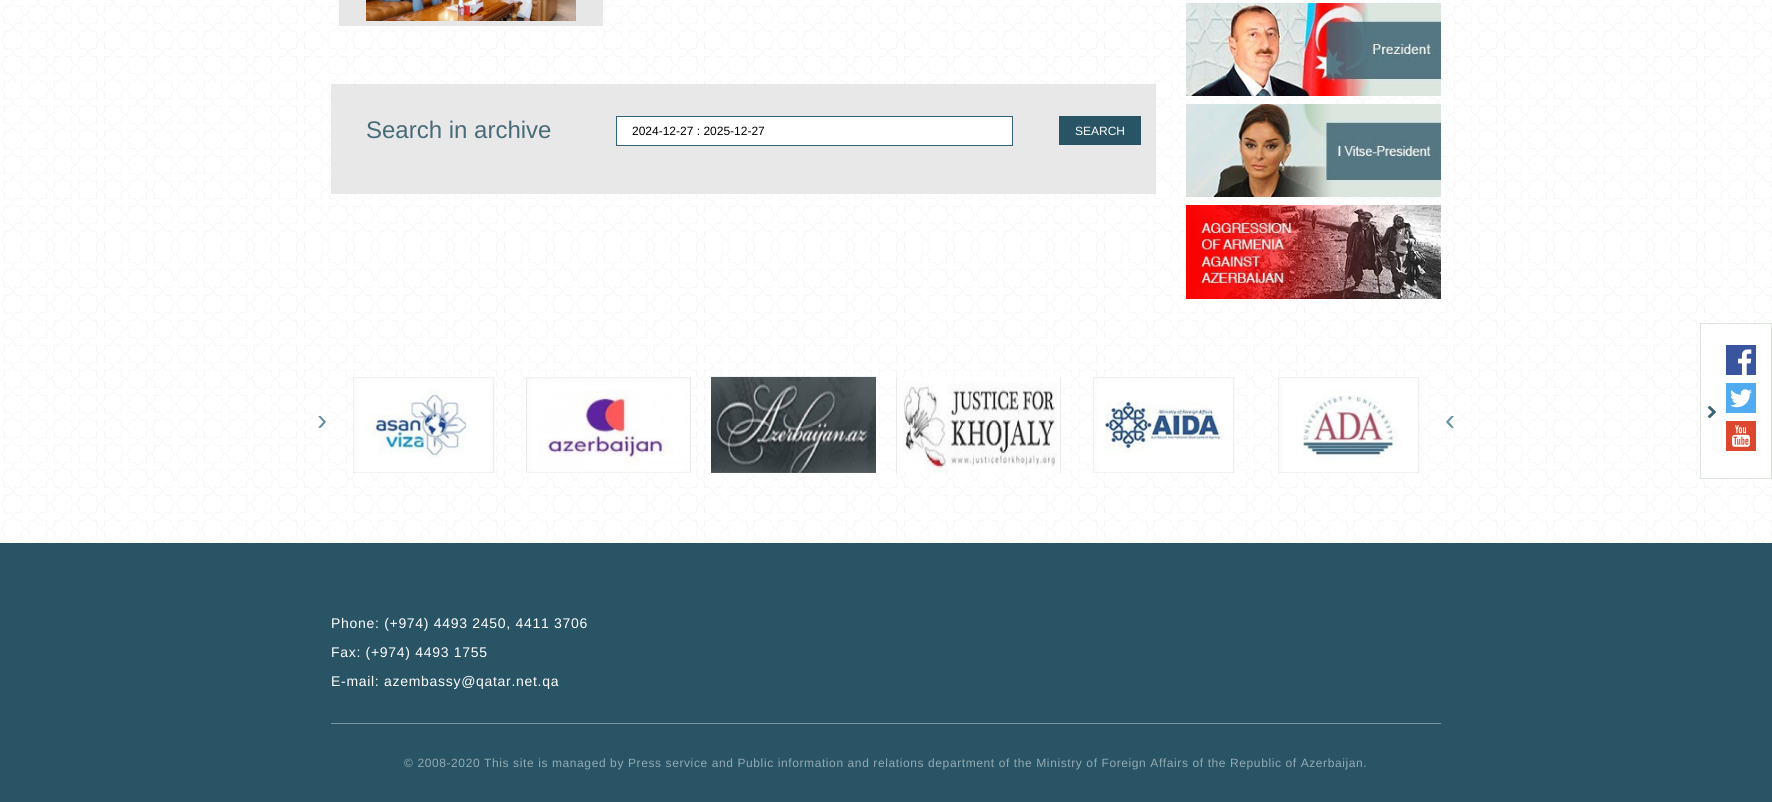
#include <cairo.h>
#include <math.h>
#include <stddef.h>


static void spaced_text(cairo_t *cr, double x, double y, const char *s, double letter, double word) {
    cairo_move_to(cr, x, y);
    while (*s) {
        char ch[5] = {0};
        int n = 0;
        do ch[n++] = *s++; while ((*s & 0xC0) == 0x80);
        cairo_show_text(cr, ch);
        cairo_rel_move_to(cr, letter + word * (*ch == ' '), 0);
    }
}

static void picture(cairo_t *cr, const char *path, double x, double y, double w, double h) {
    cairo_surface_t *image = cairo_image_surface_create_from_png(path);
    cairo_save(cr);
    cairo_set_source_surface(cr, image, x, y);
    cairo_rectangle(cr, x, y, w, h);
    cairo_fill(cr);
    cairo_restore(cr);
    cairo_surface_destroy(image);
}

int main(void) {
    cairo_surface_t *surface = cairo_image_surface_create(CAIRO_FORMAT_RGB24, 1772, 802);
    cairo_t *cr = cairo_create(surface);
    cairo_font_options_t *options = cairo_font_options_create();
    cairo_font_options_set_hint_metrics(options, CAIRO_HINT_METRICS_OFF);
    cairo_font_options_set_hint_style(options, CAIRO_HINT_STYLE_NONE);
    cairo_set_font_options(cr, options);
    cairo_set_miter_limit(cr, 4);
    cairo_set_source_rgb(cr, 1, 1, 1);
    cairo_paint(cr);
    picture(cr, "img1.png", 0, 0, 1772, 543);
    cairo_set_source_rgb(cr, 0.906, 0.906, 0.906);
    cairo_rectangle(cr, 339, 0, 264, 26);
    cairo_fill(cr);
    picture(cr, "img2.png", 366, 0, 210, 21);
    cairo_set_source_rgb(cr, 0.91, 0.91, 0.91);
    cairo_rectangle(cr, 331, 84, 825, 110);
    cairo_fill(cr);
    cairo_select_font_face(cr, "Liberation Sans", CAIRO_FONT_SLANT_NORMAL, CAIRO_FONT_WEIGHT_NORMAL);
    cairo_set_font_size(cr, 24);
    cairo_set_source_rgb(cr, 0.282, 0.42, 0.471);
    cairo_move_to(cr, 366, 138);
    cairo_show_text(cr, "Search in archive");
    cairo_set_source_rgb(cr, 1, 1, 1);
    cairo_rectangle(cr, 616.5, 116.5, 396, 29);
    cairo_fill_preserve(cr);
    cairo_set_source_rgb(cr, 0.2, 0.38, 0.471);
    cairo_set_line_width(cr, 1);
    cairo_stroke(cr);
    cairo_set_font_size(cr, 12);
    cairo_set_source_rgb(cr, 0, 0, 0);
    cairo_move_to(cr, 632, 135);
    cairo_show_text(cr, "2024-12-27 : 2025-12-27");
    cairo_set_source_rgb(cr, 0.157, 0.329, 0.396);
    cairo_rectangle(cr, 1059, 116, 82, 29);
    cairo_fill(cr);
    cairo_set_source_rgb(cr, 1, 1, 1);
    cairo_move_to(cr, 1075, 135);
    cairo_show_text(cr, "SEARCH");
    picture(cr, "img3.png", 1186, 3, 255, 93);
    picture(cr, "img4.png", 1186, 104, 255, 93);
    picture(cr, "img5.png", 1186, 205, 255, 94);
    picture(cr, "img6.png", 353, 377, 142, 96);
    picture(cr, "img7.png", 526, 377, 165, 96);
    picture(cr, "img8.png", 711, 376, 165, 97);
    picture(cr, "img9.png", 896, 377, 165, 96);
    picture(cr, "img10.png", 1093, 377, 142, 96);
    picture(cr, "img11.png", 1278, 377, 142, 96);
    cairo_set_font_size(cr, 30);
    cairo_set_source_rgb(cr, 0.384, 0.569, 0.643);
    cairo_save(cr);
    cairo_translate(cr, 327, 414);
    cairo_rotate(cr, 180 * M_PI / 180);
    cairo_move_to(cr, 0, 0);
    cairo_show_text(cr, "‹");
    cairo_restore(cr);
    cairo_save(cr);
    cairo_translate(cr, 1455, 414);
    cairo_rotate(cr, 180 * M_PI / 180);
    cairo_move_to(cr, 0, 0);
    cairo_show_text(cr, "›");
    cairo_restore(cr);
    cairo_set_source_rgb(cr, 1, 1, 1);
    cairo_rectangle(cr, 1700.5, 323.5, 71, 155);
    cairo_fill_preserve(cr);
    cairo_set_source_rgb(cr, 0.867, 0.89, 0.867);
    cairo_stroke(cr);
    picture(cr, "img12.png", 1708, 406, 8, 12);
    picture(cr, "img13.png", 1726, 345, 30, 30);
    picture(cr, "img14.png", 1726, 383, 30, 30);
    picture(cr, "img15.png", 1726, 421, 30, 30);
    cairo_set_source_rgb(cr, 0.157, 0.329, 0.396);
    cairo_rectangle(cr, 0, 543, 1772, 259);
    cairo_fill(cr);
    cairo_set_font_size(cr, 14);
    cairo_set_source_rgb(cr, 1, 1, 1);
    spaced_text(cr, 331, 628, "Phone: (+974) 4493 2450, 4411 3706", 0.7, 0);
    spaced_text(cr, 331, 657, "Fax: (+974) 4493 1755", 0.7, 0);
    spaced_text(cr, 331, 686, "E-mail: azembassy@qatar.net.qa", 0.7, 0);
    cairo_set_source_rgb(cr, 0.506, 0.58, 0.616);
    cairo_rectangle(cr, 331, 723, 1110, 1);
    cairo_fill(cr);
    cairo_set_font_size(cr, 12);
    cairo_set_source_rgb(cr, 0.58, 0.667, 0.698);
    spaced_text(cr, 404, 767, "© 2008-2020 This site is managed by Press service and Public information and relations department of the Ministry of Foreign Affairs of the Republic of Azerbaijan.", 0.6, 0);
    cairo_surface_write_to_png(surface, "page.png");
    cairo_font_options_destroy(options);
    cairo_destroy(cr);
    cairo_surface_destroy(surface);
    return 0;
}
